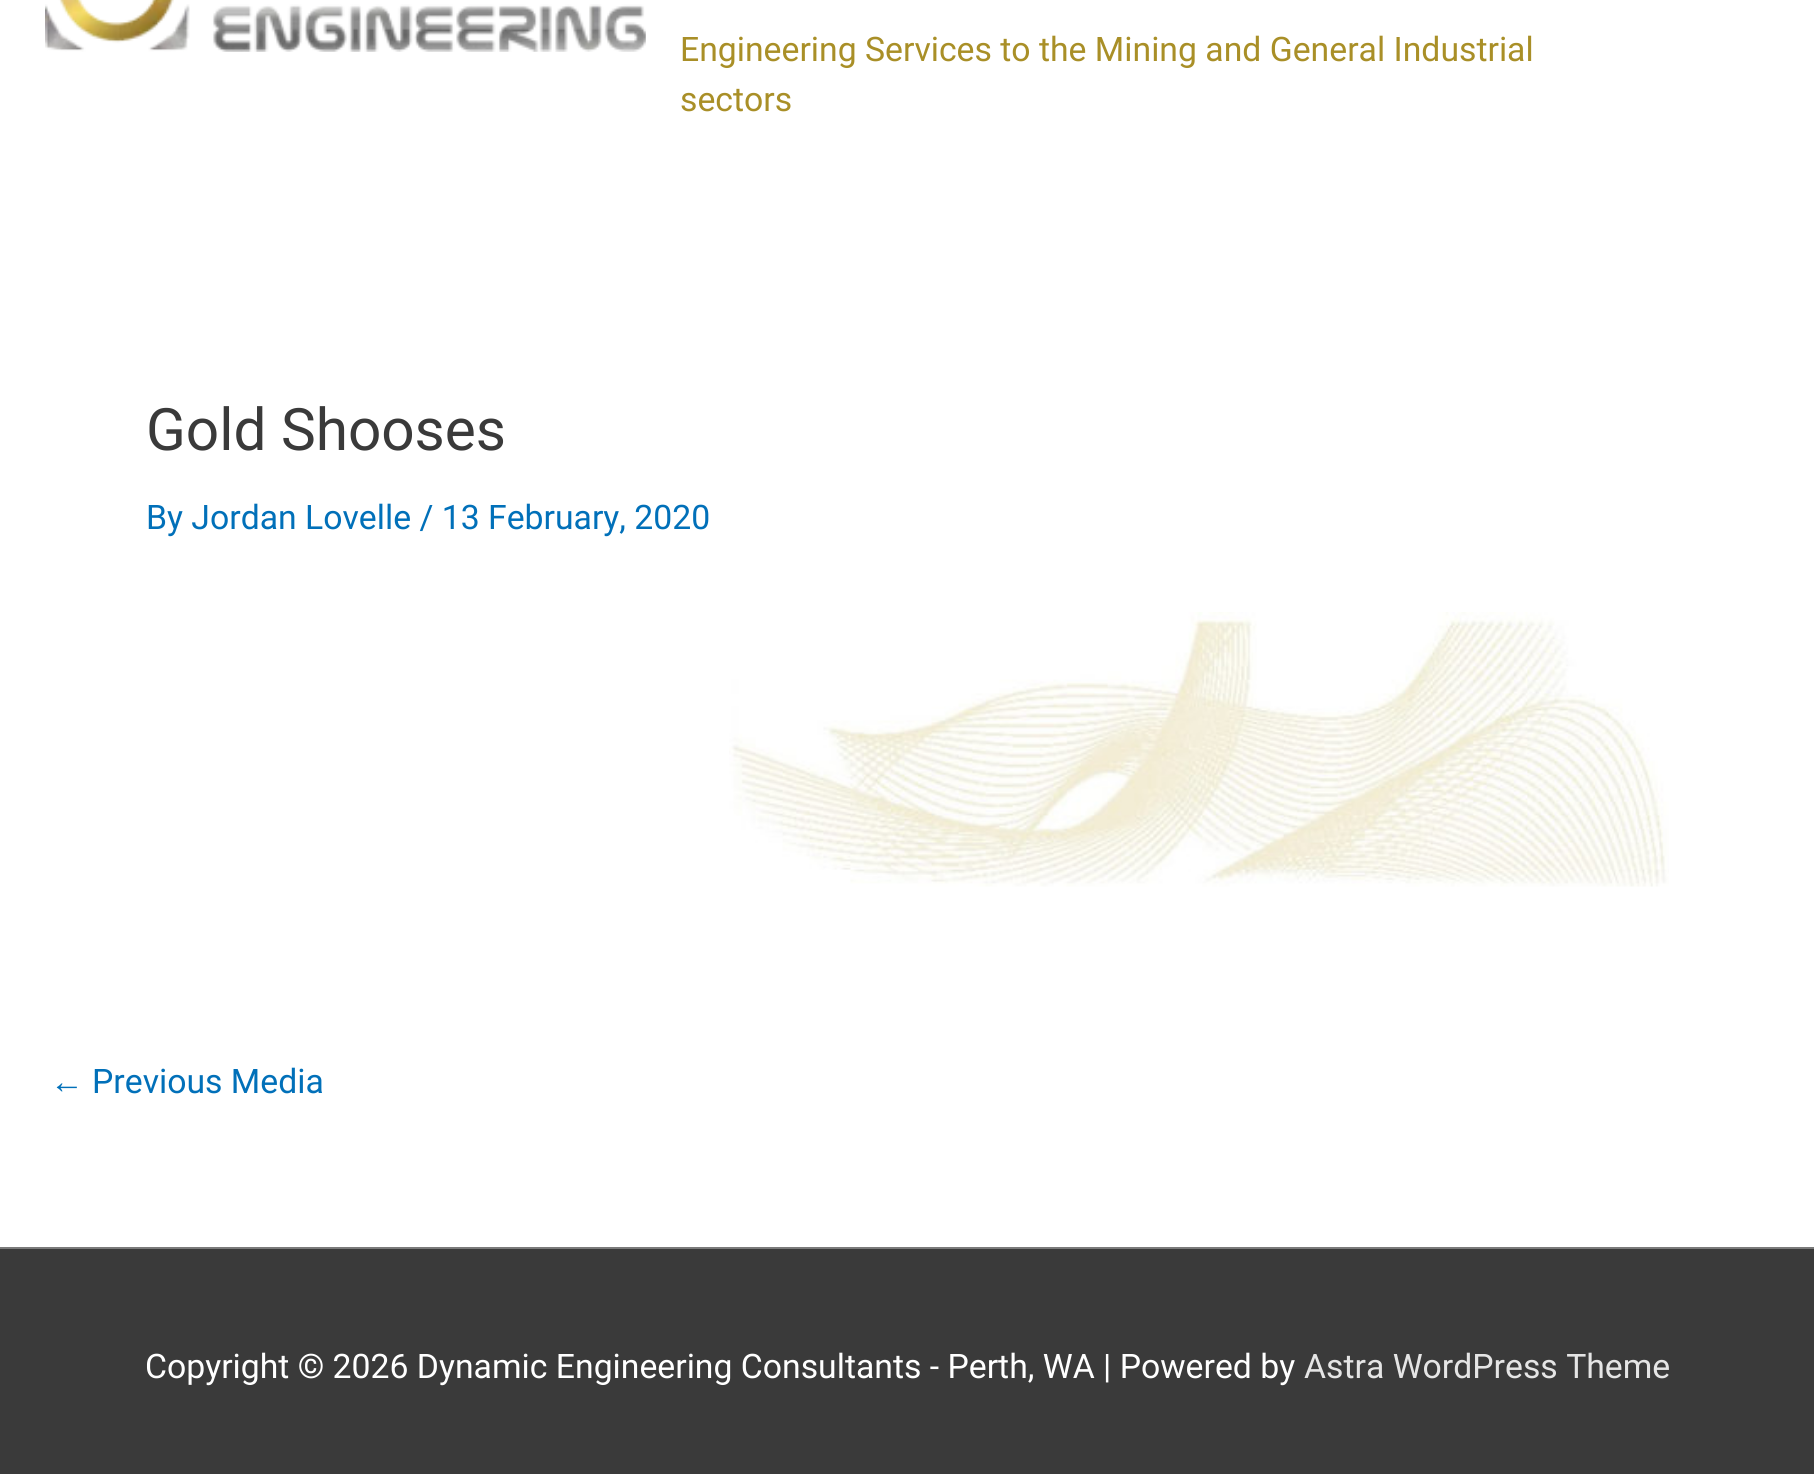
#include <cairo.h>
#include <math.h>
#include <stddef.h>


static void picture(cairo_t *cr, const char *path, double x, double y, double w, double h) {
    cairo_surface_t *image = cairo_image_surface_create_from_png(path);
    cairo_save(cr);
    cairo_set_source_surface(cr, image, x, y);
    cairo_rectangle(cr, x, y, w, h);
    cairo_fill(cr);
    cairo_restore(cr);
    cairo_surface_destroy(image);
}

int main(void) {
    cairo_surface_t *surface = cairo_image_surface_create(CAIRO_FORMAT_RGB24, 1814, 1474);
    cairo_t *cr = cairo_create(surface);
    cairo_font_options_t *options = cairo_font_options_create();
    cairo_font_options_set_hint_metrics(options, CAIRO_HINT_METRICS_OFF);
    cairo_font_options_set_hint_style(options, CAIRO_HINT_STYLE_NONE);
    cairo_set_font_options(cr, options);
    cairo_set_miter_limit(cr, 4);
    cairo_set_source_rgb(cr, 1, 1, 1);
    cairo_paint(cr);
    picture(cr, "img1.png", 45, 0, 601, 52);
    cairo_select_font_face(cr, "Roboto", CAIRO_FONT_SLANT_NORMAL, CAIRO_FONT_WEIGHT_NORMAL);
    cairo_set_font_size(cr, 33.75);
    cairo_set_source_rgb(cr, 0.663, 0.561, 0.153);
    cairo_move_to(cr, 680, 61);
    cairo_show_text(cr, "Engineering Services to the Mining and General Industrial");
    cairo_move_to(cr, 680, 111);
    cairo_show_text(cr, "sectors");
    cairo_set_font_size(cr, 58.5);
    cairo_set_source_rgb(cr, 0.227, 0.227, 0.227);
    cairo_move_to(cr, 146, 450);
    cairo_show_text(cr, "Gold Shooses");
    cairo_set_font_size(cr, 33.75);
    cairo_set_source_rgb(cr, 0.004, 0.439, 0.725);
    cairo_move_to(cr, 146, 529);
    cairo_show_text(cr, "By Jordan Lovelle / 13 February, 2020");
    picture(cr, "img2.png", 729, 612, 940, 275);
    cairo_select_font_face(cr, "Liberation Sans", CAIRO_FONT_SLANT_NORMAL, CAIRO_FONT_WEIGHT_NORMAL);
    cairo_move_to(cr, 50, 1093);
    cairo_show_text(cr, "←");
    cairo_select_font_face(cr, "Roboto", CAIRO_FONT_SLANT_NORMAL, CAIRO_FONT_WEIGHT_NORMAL);
    cairo_move_to(cr, 92, 1093);
    cairo_show_text(cr, "Previous Media");
    cairo_set_source_rgb(cr, 0.478, 0.478, 0.478);
    cairo_rectangle(cr, 0, 1247, 1814, 2);
    cairo_fill(cr);
    cairo_set_source_rgb(cr, 0.227, 0.227, 0.227);
    cairo_rectangle(cr, 0, 1249, 1814, 225);
    cairo_fill(cr);
    cairo_set_source_rgb(cr, 1, 1, 1);
    cairo_move_to(cr, 145, 1378);
    cairo_show_text(cr, "Copyright © 2026 Dynamic Engineering Consultants - Perth, WA | Powered by");
    cairo_set_source_rgb(cr, 0.898, 0.898, 0.898);
    cairo_move_to(cr, 1304, 1378);
    cairo_show_text(cr, "Astra WordPress Theme");
    cairo_surface_write_to_png(surface, "page.png");
    cairo_font_options_destroy(options);
    cairo_destroy(cr);
    cairo_surface_destroy(surface);
    return 0;
}
